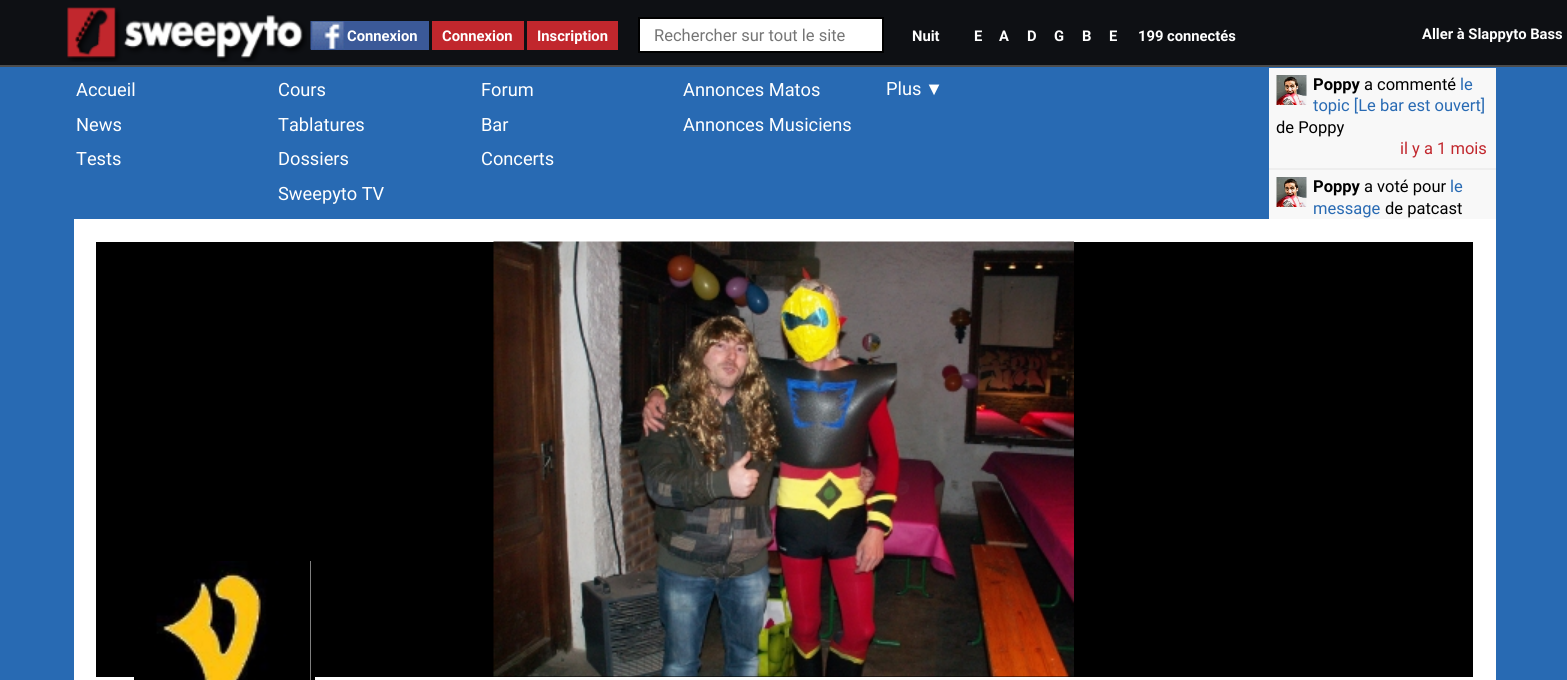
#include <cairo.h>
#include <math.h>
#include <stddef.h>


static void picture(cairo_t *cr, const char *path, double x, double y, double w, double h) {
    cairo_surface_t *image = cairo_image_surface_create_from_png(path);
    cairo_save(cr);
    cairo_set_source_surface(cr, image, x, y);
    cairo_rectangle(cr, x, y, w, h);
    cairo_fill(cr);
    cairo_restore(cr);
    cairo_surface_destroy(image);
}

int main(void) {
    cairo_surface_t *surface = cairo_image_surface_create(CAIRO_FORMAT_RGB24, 1567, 680);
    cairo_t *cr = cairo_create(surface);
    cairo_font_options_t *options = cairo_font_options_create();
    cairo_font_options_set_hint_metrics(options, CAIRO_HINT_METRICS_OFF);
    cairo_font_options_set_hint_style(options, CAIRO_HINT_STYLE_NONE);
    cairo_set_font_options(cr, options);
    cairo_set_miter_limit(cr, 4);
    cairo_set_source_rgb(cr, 0.157, 0.416, 0.702);
    cairo_paint(cr);
    cairo_set_source_rgb(cr, 0.055, 0.063, 0.082);
    cairo_rectangle(cr, 0, 0, 1567, 65);
    cairo_fill(cr);
    cairo_set_source_rgb(cr, 0.298, 0.298, 0.298);
    cairo_rectangle(cr, 0, 65, 1567, 2);
    cairo_fill(cr);
    picture(cr, "img1.png", 67, 7, 240, 55);
    cairo_set_source_rgb(cr, 0.231, 0.349, 0.596);
    cairo_rectangle(cr, 311, 21, 118, 29);
    cairo_fill(cr);
    picture(cr, "img2.png", 310, 21, 35, 29);
    cairo_select_font_face(cr, "Roboto", CAIRO_FONT_SLANT_NORMAL, CAIRO_FONT_WEIGHT_BOLD);
    cairo_set_font_size(cr, 14.75);
    cairo_set_source_rgb(cr, 1, 1, 1);
    cairo_move_to(cr, 347, 41);
    cairo_show_text(cr, "Connexion");
    cairo_set_source_rgb(cr, 0.757, 0.153, 0.176);
    cairo_rectangle(cr, 432, 21, 92, 29);
    cairo_fill(cr);
    cairo_set_source_rgb(cr, 1, 1, 1);
    cairo_move_to(cr, 442, 41);
    cairo_show_text(cr, "Connexion");
    cairo_set_source_rgb(cr, 0.757, 0.153, 0.176);
    cairo_rectangle(cr, 527, 21, 91, 29);
    cairo_fill(cr);
    cairo_set_source_rgb(cr, 1, 1, 1);
    cairo_move_to(cr, 537, 41);
    cairo_show_text(cr, "Inscription");
    cairo_rectangle(cr, 639, 18, 244, 34);
    cairo_fill_preserve(cr);
    cairo_set_source_rgb(cr, 0, 0, 0);
    cairo_stroke(cr);
    cairo_select_font_face(cr, "Roboto", CAIRO_FONT_SLANT_NORMAL, CAIRO_FONT_WEIGHT_NORMAL);
    cairo_set_font_size(cr, 16.5);
    cairo_set_source_rgb(cr, 0.459, 0.459, 0.459);
    cairo_move_to(cr, 654, 41);
    cairo_show_text(cr, "Rechercher sur tout le site");
    cairo_select_font_face(cr, "Roboto", CAIRO_FONT_SLANT_NORMAL, CAIRO_FONT_WEIGHT_BOLD);
    cairo_set_font_size(cr, 14.75);
    cairo_set_source_rgb(cr, 1, 1, 1);
    cairo_move_to(cr, 912, 41);
    cairo_show_text(cr, "Nuit");
    cairo_move_to(cr, 974, 41);
    cairo_show_text(cr, "E");
    cairo_move_to(cr, 999, 41);
    cairo_show_text(cr, "A");
    cairo_move_to(cr, 1027, 41);
    cairo_show_text(cr, "D");
    cairo_move_to(cr, 1054, 41);
    cairo_show_text(cr, "G");
    cairo_move_to(cr, 1082, 41);
    cairo_show_text(cr, "B");
    cairo_move_to(cr, 1109, 41);
    cairo_show_text(cr, "E");
    cairo_move_to(cr, 1138, 41);
    cairo_show_text(cr, "199 connectés");
    cairo_move_to(cr, 1422, 39);
    cairo_show_text(cr, "Aller à Slappyto Bass");
    cairo_select_font_face(cr, "Roboto", CAIRO_FONT_SLANT_NORMAL, CAIRO_FONT_WEIGHT_NORMAL);
    cairo_set_font_size(cr, 18.25);
    cairo_move_to(cr, 76, 96);
    cairo_show_text(cr, "Accueil");
    cairo_move_to(cr, 76, 131);
    cairo_show_text(cr, "News");
    cairo_move_to(cr, 76, 165);
    cairo_show_text(cr, "Tests");
    cairo_move_to(cr, 278, 96);
    cairo_show_text(cr, "Cours");
    cairo_move_to(cr, 278, 131);
    cairo_show_text(cr, "Tablatures");
    cairo_move_to(cr, 278, 165);
    cairo_show_text(cr, "Dossiers");
    cairo_move_to(cr, 278, 200);
    cairo_show_text(cr, "Sweepyto TV");
    cairo_move_to(cr, 481, 96);
    cairo_show_text(cr, "Forum");
    cairo_move_to(cr, 481, 131);
    cairo_show_text(cr, "Bar");
    cairo_move_to(cr, 481, 165);
    cairo_show_text(cr, "Concerts");
    cairo_move_to(cr, 683, 96);
    cairo_show_text(cr, "Annonces Matos");
    cairo_move_to(cr, 683, 131);
    cairo_show_text(cr, "Annonces Musiciens");
    cairo_move_to(cr, 886, 95);
    cairo_show_text(cr, "Plus");
    cairo_select_font_face(cr, "Liberation Sans", CAIRO_FONT_SLANT_NORMAL, CAIRO_FONT_WEIGHT_NORMAL);
    cairo_move_to(cr, 925, 95);
    cairo_show_text(cr, "▼");
    cairo_set_source_rgb(cr, 0.969, 0.969, 0.969);
    cairo_rectangle(cr, 1269, 68, 227, 151);
    cairo_fill(cr);
    picture(cr, "img3.png", 1276, 75, 31, 30);
    cairo_select_font_face(cr, "Roboto", CAIRO_FONT_SLANT_NORMAL, CAIRO_FONT_WEIGHT_BOLD);
    cairo_set_font_size(cr, 16.5);
    cairo_set_source_rgb(cr, 0, 0, 0);
    cairo_move_to(cr, 1313, 90);
    cairo_show_text(cr, "Poppy");
    cairo_select_font_face(cr, "Roboto", CAIRO_FONT_SLANT_NORMAL, CAIRO_FONT_WEIGHT_NORMAL);
    cairo_move_to(cr, 1364, 90);
    cairo_show_text(cr, "a commenté");
    cairo_set_source_rgb(cr, 0.157, 0.416, 0.702);
    cairo_move_to(cr, 1460, 90);
    cairo_show_text(cr, "le");
    cairo_move_to(cr, 1313, 111);
    cairo_show_text(cr, "topic [Le bar est ouvert]");
    cairo_set_source_rgb(cr, 0, 0, 0);
    cairo_move_to(cr, 1276, 133);
    cairo_show_text(cr, "de Poppy");
    cairo_set_source_rgb(cr, 0.757, 0.153, 0.176);
    cairo_move_to(cr, 1400, 154);
    cairo_show_text(cr, "il y a 1 mois");
    cairo_set_source_rgb(cr, 0.933, 0.933, 0.933);
    cairo_rectangle(cr, 1269, 168, 227, 2);
    cairo_fill(cr);
    picture(cr, "img3.png", 1276, 177, 31, 30);
    cairo_select_font_face(cr, "Roboto", CAIRO_FONT_SLANT_NORMAL, CAIRO_FONT_WEIGHT_BOLD);
    cairo_set_source_rgb(cr, 0, 0, 0);
    cairo_move_to(cr, 1313, 192);
    cairo_show_text(cr, "Poppy");
    cairo_select_font_face(cr, "Roboto", CAIRO_FONT_SLANT_NORMAL, CAIRO_FONT_WEIGHT_NORMAL);
    cairo_move_to(cr, 1364, 192);
    cairo_show_text(cr, "a voté pour");
    cairo_set_source_rgb(cr, 0.157, 0.416, 0.702);
    cairo_move_to(cr, 1450, 192);
    cairo_show_text(cr, "le");
    cairo_move_to(cr, 1313, 214);
    cairo_show_text(cr, "message");
    cairo_set_source_rgb(cr, 0, 0, 0);
    cairo_move_to(cr, 1385, 214);
    cairo_show_text(cr, "de patcast");
    cairo_set_source_rgb(cr, 1, 1, 1);
    cairo_rectangle(cr, 74, 219, 1422, 461);
    cairo_fill(cr);
    cairo_set_source_rgb(cr, 0, 0, 0);
    cairo_rectangle(cr, 96, 242, 1377, 435);
    cairo_fill(cr);
    picture(cr, "img4.png", 493, 241, 581, 436);
    cairo_rectangle(cr, 134, 677, 181, 3);
    cairo_fill(cr);
    cairo_set_source_rgb(cr, 1, 1, 1);
    cairo_rectangle(cr, 310, 561, 1, 119);
    cairo_fill(cr);
    picture(cr, "img5.png", 138, 561, 173, 119);
    cairo_surface_write_to_png(surface, "page.png");
    cairo_font_options_destroy(options);
    cairo_destroy(cr);
    cairo_surface_destroy(surface);
    return 0;
}
